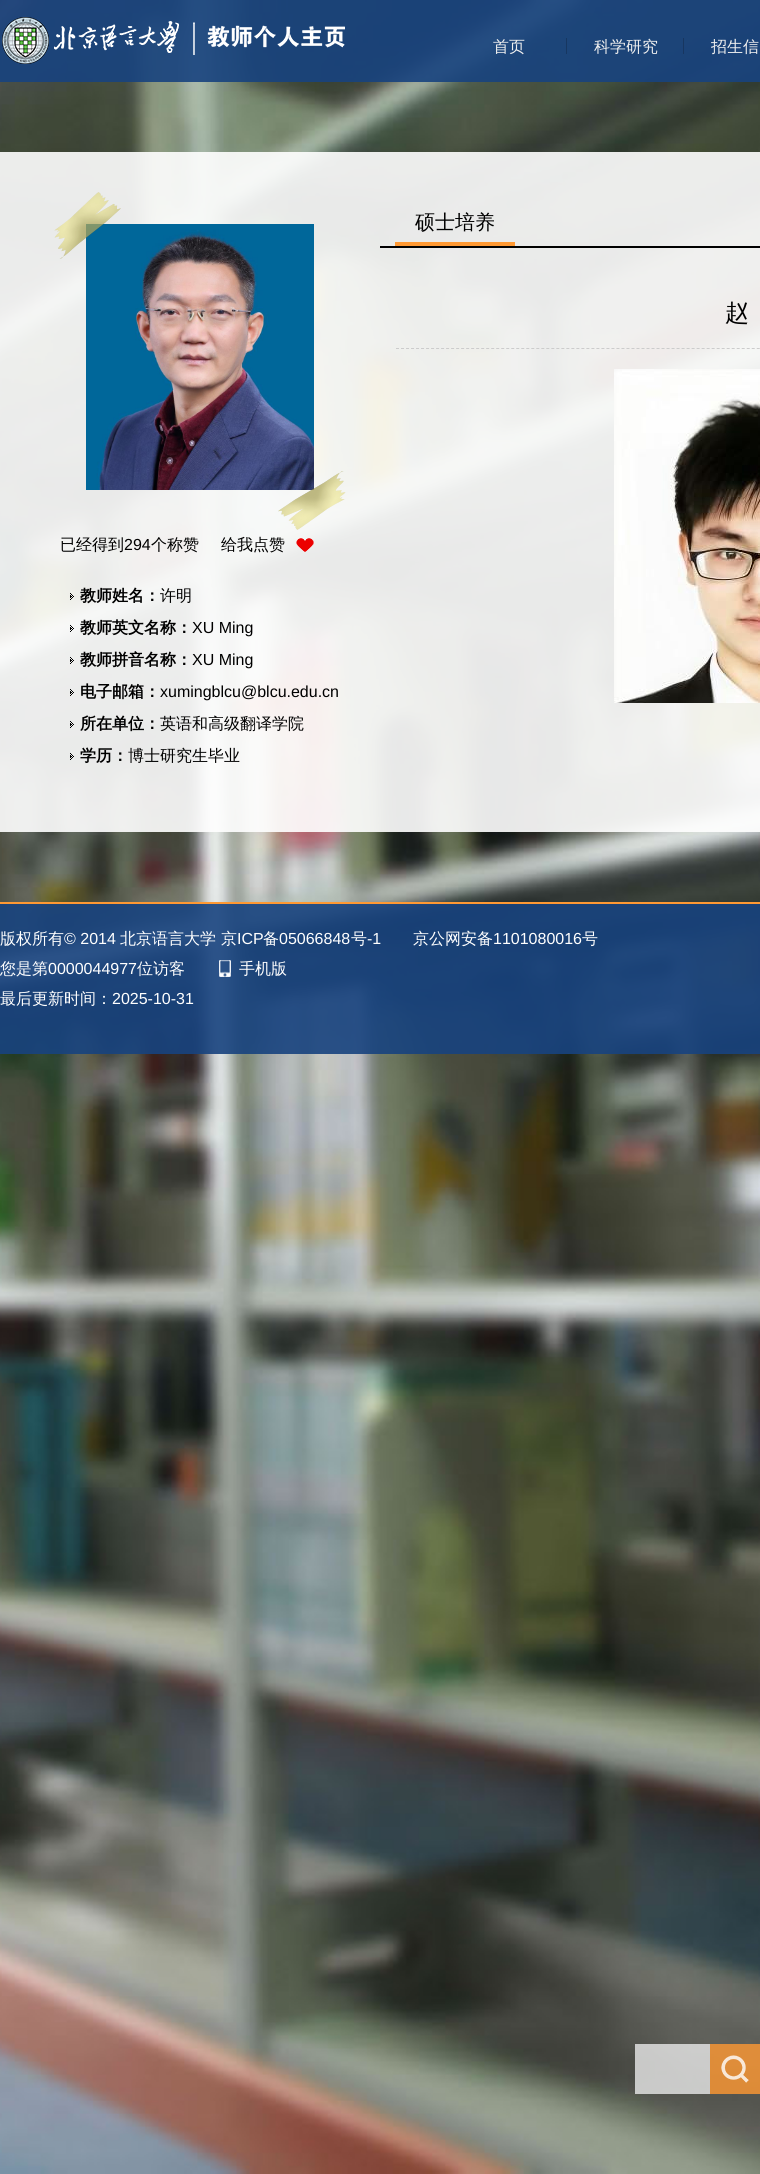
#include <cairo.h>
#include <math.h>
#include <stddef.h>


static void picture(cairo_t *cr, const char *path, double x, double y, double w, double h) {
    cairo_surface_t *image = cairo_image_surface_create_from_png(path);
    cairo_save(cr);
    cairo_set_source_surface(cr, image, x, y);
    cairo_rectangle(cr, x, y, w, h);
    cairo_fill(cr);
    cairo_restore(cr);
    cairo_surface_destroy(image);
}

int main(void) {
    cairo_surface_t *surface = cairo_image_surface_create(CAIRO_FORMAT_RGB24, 760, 2174);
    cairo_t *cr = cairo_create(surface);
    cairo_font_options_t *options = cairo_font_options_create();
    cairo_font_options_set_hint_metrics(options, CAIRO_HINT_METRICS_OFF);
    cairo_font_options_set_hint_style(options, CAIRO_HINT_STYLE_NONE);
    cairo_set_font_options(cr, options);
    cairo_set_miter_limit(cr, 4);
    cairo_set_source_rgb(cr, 1, 1, 1);
    cairo_paint(cr);
    picture(cr, "img1.png", 0, 0, 760, 2174);
    cairo_set_source_rgba(cr, 0.094, 0.263, 0.498, 0.9);
    cairo_rectangle(cr, 0, 0, 760, 82);
    cairo_fill(cr);
    picture(cr, "img2.png", 2, 17, 343, 47);
    cairo_set_source_rgb(cr, 0.09, 0.216, 0.38);
    cairo_rectangle(cr, 566, 38, 1, 16);
    cairo_fill(cr);
    cairo_select_font_face(cr, "WenQuanYi Zen Hei Medium", CAIRO_FONT_SLANT_NORMAL, CAIRO_FONT_WEIGHT_NORMAL);
    cairo_set_font_size(cr, 16);
    cairo_set_source_rgb(cr, 0.941, 0.941, 0.941);
    cairo_move_to(cr, 493, 52);
    cairo_show_text(cr, "首页");
    cairo_set_source_rgb(cr, 0.09, 0.212, 0.376);
    cairo_rectangle(cr, 683, 38, 1, 16);
    cairo_fill(cr);
    cairo_set_source_rgb(cr, 0.941, 0.941, 0.941);
    cairo_move_to(cr, 594, 52);
    cairo_show_text(cr, "科学研究");
    cairo_move_to(cr, 711, 52);
    cairo_show_text(cr, "招生信");
    cairo_set_source_rgba(cr, 1, 1, 1, 0.9);
    cairo_rectangle(cr, 0, 152, 760, 680);
    cairo_fill(cr);
    cairo_set_source_rgb(cr, 0, 0, 0);
    cairo_rectangle(cr, 380, 246, 380, 2);
    cairo_fill(cr);
    cairo_set_source_rgb(cr, 1, 0.6, 0.2);
    cairo_rectangle(cr, 395, 242, 120, 4);
    cairo_fill(cr);
    cairo_set_font_size(cr, 20);
    cairo_set_source_rgb(cr, 0, 0, 0);
    cairo_move_to(cr, 415, 229);
    cairo_show_text(cr, "硕士培养");
    cairo_new_path(cr);
    cairo_move_to(cr, 396, 348.5);
    cairo_line_to(cr, 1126, 348.5);
    cairo_set_source_rgb(cr, 0.8, 0.8, 0.8);
    cairo_set_line_width(cr, 1);
    cairo_set_dash(cr, (double[]){3, 2.01}, 2, 0);
    cairo_stroke(cr);
    cairo_set_font_size(cr, 24);
    cairo_set_source_rgb(cr, 0, 0, 0);
    cairo_move_to(cr, 725, 321);
    cairo_show_text(cr, "赵");
    picture(cr, "img3.png", 614, 369, 146, 334);
    picture(cr, "img5.png", 86, 224, 228, 266);
    picture(cr, "img4.png", 54, 192, 292, 338);
    cairo_set_font_size(cr, 16);
    cairo_move_to(cr, 60, 550);
    cairo_show_text(cr, "已经得到");
    cairo_select_font_face(cr, "Liberation Sans", CAIRO_FONT_SLANT_NORMAL, CAIRO_FONT_WEIGHT_NORMAL);
    cairo_move_to(cr, 124, 550);
    cairo_show_text(cr, "294");
    cairo_select_font_face(cr, "WenQuanYi Zen Hei Medium", CAIRO_FONT_SLANT_NORMAL, CAIRO_FONT_WEIGHT_NORMAL);
    cairo_move_to(cr, 151, 550);
    cairo_show_text(cr, "个称赞");
    cairo_move_to(cr, 221, 550);
    cairo_show_text(cr, "给我点赞");
    picture(cr, "img6.png", 296, 538, 18, 14);
    picture(cr, "img7.png", 70, 593, 4, 7);
    cairo_select_font_face(cr, "WenQuanYi Zen Hei", CAIRO_FONT_SLANT_NORMAL, CAIRO_FONT_WEIGHT_BOLD);
    cairo_move_to(cr, 80, 601);
    cairo_show_text(cr, "教师姓名：");
    cairo_select_font_face(cr, "WenQuanYi Zen Hei Medium", CAIRO_FONT_SLANT_NORMAL, CAIRO_FONT_WEIGHT_NORMAL);
    cairo_move_to(cr, 160, 601);
    cairo_show_text(cr, "许明");
    picture(cr, "img8.png", 70, 625, 4, 7);
    cairo_select_font_face(cr, "WenQuanYi Zen Hei", CAIRO_FONT_SLANT_NORMAL, CAIRO_FONT_WEIGHT_BOLD);
    cairo_move_to(cr, 80, 633);
    cairo_show_text(cr, "教师英文名称：");
    cairo_select_font_face(cr, "Liberation Sans", CAIRO_FONT_SLANT_NORMAL, CAIRO_FONT_WEIGHT_NORMAL);
    cairo_move_to(cr, 192, 633);
    cairo_show_text(cr, "XU Ming");
    picture(cr, "img9.png", 70, 657, 4, 7);
    cairo_select_font_face(cr, "WenQuanYi Zen Hei", CAIRO_FONT_SLANT_NORMAL, CAIRO_FONT_WEIGHT_BOLD);
    cairo_move_to(cr, 80, 665);
    cairo_show_text(cr, "教师拼音名称：");
    cairo_select_font_face(cr, "Liberation Sans", CAIRO_FONT_SLANT_NORMAL, CAIRO_FONT_WEIGHT_NORMAL);
    cairo_move_to(cr, 192, 665);
    cairo_show_text(cr, "XU Ming");
    picture(cr, "img10.png", 70, 689, 4, 7);
    cairo_select_font_face(cr, "WenQuanYi Zen Hei", CAIRO_FONT_SLANT_NORMAL, CAIRO_FONT_WEIGHT_BOLD);
    cairo_move_to(cr, 80, 697);
    cairo_show_text(cr, "电子邮箱：");
    cairo_select_font_face(cr, "Liberation Sans", CAIRO_FONT_SLANT_NORMAL, CAIRO_FONT_WEIGHT_NORMAL);
    cairo_move_to(cr, 160, 697);
    cairo_show_text(cr, "xumingblcu@blcu.edu.cn");
    picture(cr, "img11.png", 70, 721, 4, 7);
    cairo_select_font_face(cr, "WenQuanYi Zen Hei", CAIRO_FONT_SLANT_NORMAL, CAIRO_FONT_WEIGHT_BOLD);
    cairo_move_to(cr, 80, 729);
    cairo_show_text(cr, "所在单位：");
    cairo_select_font_face(cr, "WenQuanYi Zen Hei Medium", CAIRO_FONT_SLANT_NORMAL, CAIRO_FONT_WEIGHT_NORMAL);
    cairo_move_to(cr, 160, 729);
    cairo_show_text(cr, "英语和高级翻译学院");
    picture(cr, "img12.png", 70, 753, 4, 7);
    cairo_select_font_face(cr, "WenQuanYi Zen Hei", CAIRO_FONT_SLANT_NORMAL, CAIRO_FONT_WEIGHT_BOLD);
    cairo_move_to(cr, 80, 761);
    cairo_show_text(cr, "学历：");
    cairo_select_font_face(cr, "WenQuanYi Zen Hei Medium", CAIRO_FONT_SLANT_NORMAL, CAIRO_FONT_WEIGHT_NORMAL);
    cairo_move_to(cr, 128, 761);
    cairo_show_text(cr, "博士研究生毕业");
    cairo_set_source_rgba(cr, 0.094, 0.263, 0.498, 0.9);
    cairo_rectangle(cr, 0, 904, 760, 150);
    cairo_fill(cr);
    cairo_set_source_rgb(cr, 1, 0.6, 0.2);
    cairo_rectangle(cr, 0, 902, 760, 2);
    cairo_fill(cr);
    cairo_set_source_rgb(cr, 1, 1, 1);
    cairo_move_to(cr, 0, 944);
    cairo_show_text(cr, "版权所有");
    cairo_select_font_face(cr, "Liberation Sans", CAIRO_FONT_SLANT_NORMAL, CAIRO_FONT_WEIGHT_NORMAL);
    cairo_move_to(cr, 64, 944);
    cairo_show_text(cr, "© 2014");
    cairo_select_font_face(cr, "WenQuanYi Zen Hei Medium", CAIRO_FONT_SLANT_NORMAL, CAIRO_FONT_WEIGHT_NORMAL);
    cairo_move_to(cr, 120, 944);
    cairo_show_text(cr, "北京语言大学");
    cairo_move_to(cr, 221, 944);
    cairo_show_text(cr, "京");
    cairo_select_font_face(cr, "Liberation Sans", CAIRO_FONT_SLANT_NORMAL, CAIRO_FONT_WEIGHT_NORMAL);
    cairo_move_to(cr, 237, 944);
    cairo_show_text(cr, "ICP");
    cairo_select_font_face(cr, "WenQuanYi Zen Hei Medium", CAIRO_FONT_SLANT_NORMAL, CAIRO_FONT_WEIGHT_NORMAL);
    cairo_move_to(cr, 263, 944);
    cairo_show_text(cr, "备");
    cairo_select_font_face(cr, "Liberation Sans", CAIRO_FONT_SLANT_NORMAL, CAIRO_FONT_WEIGHT_NORMAL);
    cairo_move_to(cr, 279, 944);
    cairo_show_text(cr, "05066848");
    cairo_select_font_face(cr, "WenQuanYi Zen Hei Medium", CAIRO_FONT_SLANT_NORMAL, CAIRO_FONT_WEIGHT_NORMAL);
    cairo_move_to(cr, 351, 944);
    cairo_show_text(cr, "号");
    cairo_select_font_face(cr, "Liberation Sans", CAIRO_FONT_SLANT_NORMAL, CAIRO_FONT_WEIGHT_NORMAL);
    cairo_move_to(cr, 367, 944);
    cairo_show_text(cr, "-1");
    cairo_select_font_face(cr, "WenQuanYi Zen Hei Medium", CAIRO_FONT_SLANT_NORMAL, CAIRO_FONT_WEIGHT_NORMAL);
    cairo_move_to(cr, 413, 944);
    cairo_show_text(cr, "京公网安备");
    cairo_select_font_face(cr, "Liberation Sans", CAIRO_FONT_SLANT_NORMAL, CAIRO_FONT_WEIGHT_NORMAL);
    cairo_move_to(cr, 493, 944);
    cairo_show_text(cr, "1101080016");
    cairo_select_font_face(cr, "WenQuanYi Zen Hei Medium", CAIRO_FONT_SLANT_NORMAL, CAIRO_FONT_WEIGHT_NORMAL);
    cairo_move_to(cr, 582, 944);
    cairo_show_text(cr, "号");
    cairo_move_to(cr, 0, 974);
    cairo_show_text(cr, "您是第");
    cairo_select_font_face(cr, "Liberation Sans", CAIRO_FONT_SLANT_NORMAL, CAIRO_FONT_WEIGHT_NORMAL);
    cairo_move_to(cr, 48, 974);
    cairo_show_text(cr, "0000044977");
    cairo_select_font_face(cr, "WenQuanYi Zen Hei Medium", CAIRO_FONT_SLANT_NORMAL, CAIRO_FONT_WEIGHT_NORMAL);
    cairo_move_to(cr, 137, 974);
    cairo_show_text(cr, "位访客");
    picture(cr, "img13.png", 219, 960, 12, 17);
    cairo_move_to(cr, 239, 974);
    cairo_show_text(cr, "手机版");
    cairo_move_to(cr, 0, 1004);
    cairo_show_text(cr, "最后更新时间：");
    cairo_select_font_face(cr, "Liberation Sans", CAIRO_FONT_SLANT_NORMAL, CAIRO_FONT_WEIGHT_NORMAL);
    cairo_move_to(cr, 112, 1004);
    cairo_show_text(cr, "2025-10-31");
    cairo_set_source_rgba(cr, 0.91, 0.91, 0.91, 0.8);
    cairo_rectangle(cr, 635, 2044, 75, 50);
    cairo_fill(cr);
    cairo_set_source_rgba(cr, 1, 0.6, 0.2, 0.8);
    cairo_rectangle(cr, 710, 2044, 50, 50);
    cairo_fill(cr);
    picture(cr, "img14.png", 721, 2055, 28, 28);
    cairo_surface_write_to_png(surface, "page.png");
    cairo_font_options_destroy(options);
    cairo_destroy(cr);
    cairo_surface_destroy(surface);
    return 0;
}
